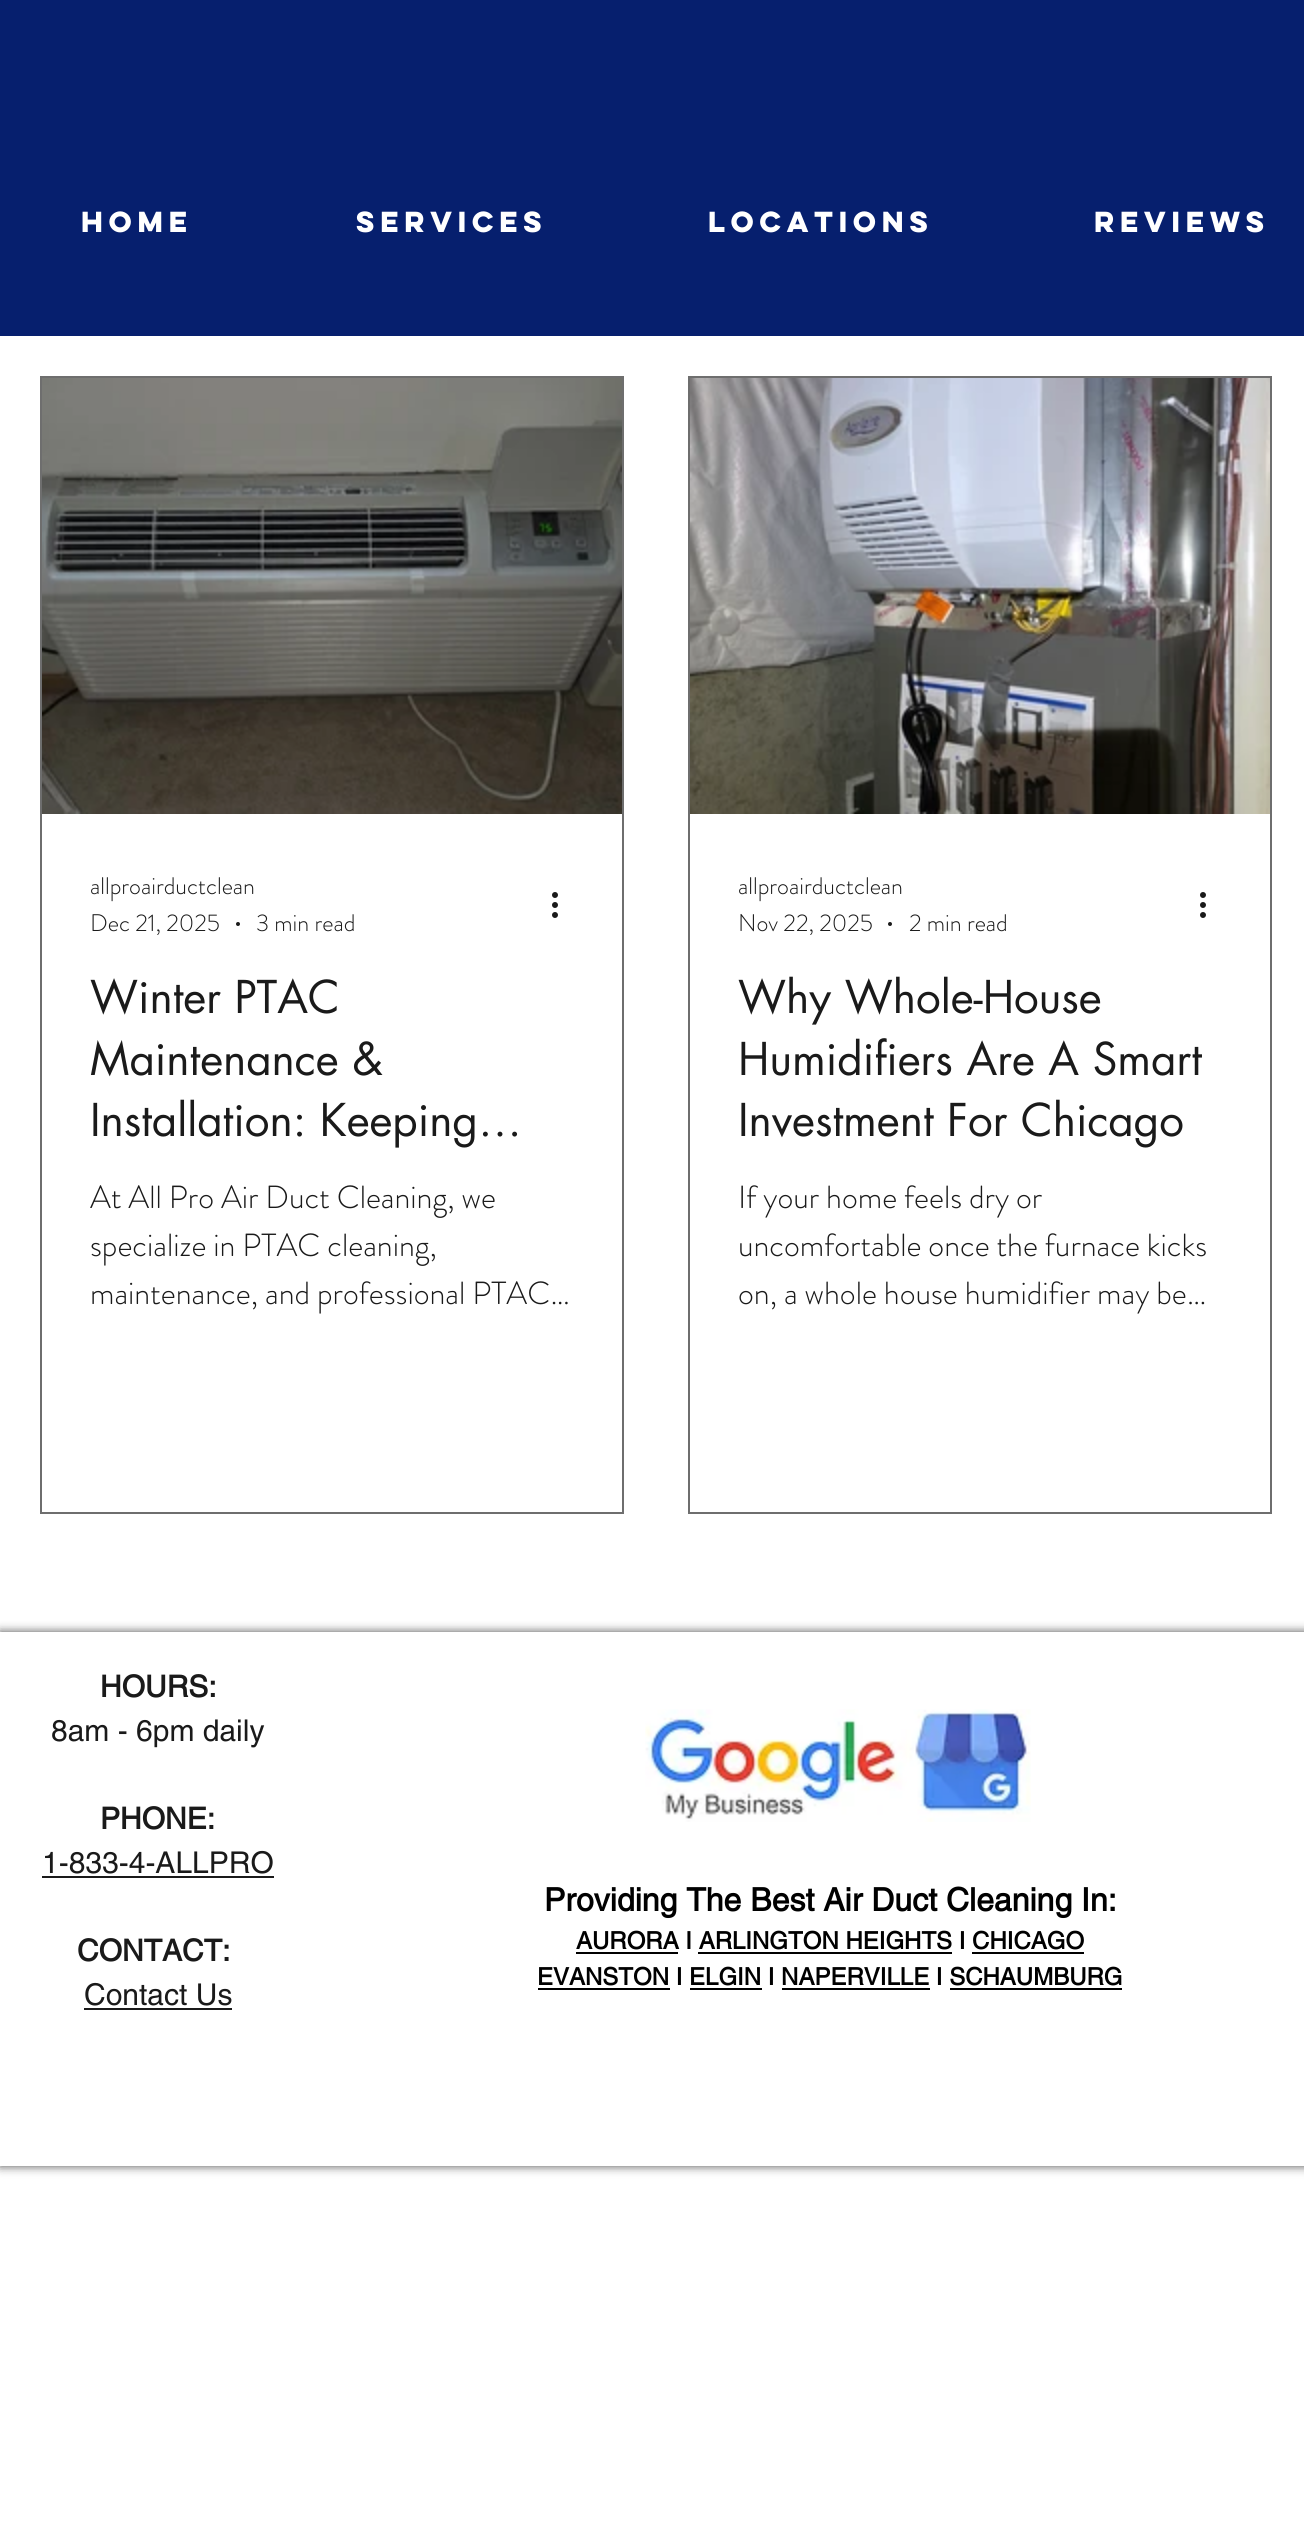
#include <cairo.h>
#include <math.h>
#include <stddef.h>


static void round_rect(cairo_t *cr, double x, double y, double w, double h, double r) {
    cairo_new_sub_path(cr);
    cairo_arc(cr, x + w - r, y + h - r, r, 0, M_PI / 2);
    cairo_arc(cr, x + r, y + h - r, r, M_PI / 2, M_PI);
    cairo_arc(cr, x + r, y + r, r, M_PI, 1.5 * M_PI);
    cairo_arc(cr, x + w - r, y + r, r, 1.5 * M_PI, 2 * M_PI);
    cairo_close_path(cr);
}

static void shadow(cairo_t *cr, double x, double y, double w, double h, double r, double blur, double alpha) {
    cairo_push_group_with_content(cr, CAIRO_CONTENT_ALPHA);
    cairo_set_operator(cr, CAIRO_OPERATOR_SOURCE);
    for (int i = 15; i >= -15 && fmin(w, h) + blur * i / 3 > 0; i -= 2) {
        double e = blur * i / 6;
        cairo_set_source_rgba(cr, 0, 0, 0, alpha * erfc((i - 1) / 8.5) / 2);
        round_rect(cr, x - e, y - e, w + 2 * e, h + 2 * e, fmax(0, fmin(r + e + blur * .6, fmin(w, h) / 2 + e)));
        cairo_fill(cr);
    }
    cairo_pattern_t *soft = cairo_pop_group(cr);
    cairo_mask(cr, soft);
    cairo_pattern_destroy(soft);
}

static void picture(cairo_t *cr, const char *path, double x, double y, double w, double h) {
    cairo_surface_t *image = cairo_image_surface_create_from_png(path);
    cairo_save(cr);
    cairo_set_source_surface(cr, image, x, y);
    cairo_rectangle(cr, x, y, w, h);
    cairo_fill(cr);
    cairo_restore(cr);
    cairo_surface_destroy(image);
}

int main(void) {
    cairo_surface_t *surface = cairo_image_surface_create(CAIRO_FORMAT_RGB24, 1304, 2543);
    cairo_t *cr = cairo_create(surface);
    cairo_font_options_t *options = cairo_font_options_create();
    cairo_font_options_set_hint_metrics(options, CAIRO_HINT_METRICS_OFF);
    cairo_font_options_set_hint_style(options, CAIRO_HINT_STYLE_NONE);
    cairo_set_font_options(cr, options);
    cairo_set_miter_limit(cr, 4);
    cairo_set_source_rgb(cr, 1, 1, 1);
    cairo_paint(cr);
    cairo_set_source_rgb(cr, 0.027, 0.122, 0.431);
    cairo_rectangle(cr, 0, 0, 1304, 336);
    cairo_fill(cr);
    cairo_select_font_face(cr, "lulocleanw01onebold", CAIRO_FONT_SLANT_NORMAL, CAIRO_FONT_WEIGHT_BOLD);
    cairo_set_font_size(cr, 26);
    cairo_set_source_rgb(cr, 1, 1, 1);
    cairo_move_to(cr, 81, 232);
    cairo_show_text(cr, "Home");
    cairo_move_to(cr, 356, 232);
    cairo_show_text(cr, "Services");
    cairo_move_to(cr, 708, 232);
    cairo_show_text(cr, "Locations");
    cairo_move_to(cr, 1094, 232);
    cairo_show_text(cr, "Reviews");
    cairo_rectangle(cr, 41, 377, 582, 1136);
    cairo_set_source_rgb(cr, 0.431, 0.431, 0.431);
    cairo_stroke(cr);
    picture(cr, "img1.png", 42, 378, 580, 436);
    cairo_select_font_face(cr, "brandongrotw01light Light", CAIRO_FONT_SLANT_NORMAL, CAIRO_FONT_WEIGHT_NORMAL);
    cairo_set_font_size(cr, 24);
    cairo_set_source_rgb(cr, 0.102, 0.102, 0.102);
    cairo_move_to(cr, 90, 894);
    cairo_show_text(cr, "allproairductclean");
    cairo_move_to(cr, 90, 931);
    cairo_show_text(cr, "Dec 21, 2025");
    cairo_new_path(cr);
    cairo_arc(cr, 238, 924, 2, 0, 2 * M_PI);
    cairo_fill(cr);
    cairo_move_to(cr, 256, 931);
    cairo_show_text(cr, "3 min read");
    picture(cr, "img2.png", 552, 892, 6, 26);
    cairo_select_font_face(cr, "futura", CAIRO_FONT_SLANT_NORMAL, CAIRO_FONT_WEIGHT_NORMAL);
    cairo_set_font_size(cr, 44);
    cairo_move_to(cr, 90, 1013);
    cairo_show_text(cr, "Winter PTAC");
    cairo_move_to(cr, 90, 1075);
    cairo_show_text(cr, "Maintenance &");
    cairo_move_to(cr, 90, 1136);
    cairo_show_text(cr, "Installation: Keeping…");
    cairo_select_font_face(cr, "brandongrotw01light Light", CAIRO_FONT_SLANT_NORMAL, CAIRO_FONT_WEIGHT_NORMAL);
    cairo_set_font_size(cr, 32);
    cairo_move_to(cr, 90, 1208);
    cairo_show_text(cr, "At All Pro Air Duct Cleaning, we");
    cairo_move_to(cr, 90, 1256);
    cairo_show_text(cr, "specialize in PTAC cleaning,");
    cairo_move_to(cr, 90, 1304);
    cairo_show_text(cr, "maintenance, and professional PTAC…");
    cairo_rectangle(cr, 689, 377, 582, 1136);
    cairo_set_source_rgb(cr, 0.431, 0.431, 0.431);
    cairo_stroke(cr);
    picture(cr, "img3.png", 690, 378, 580, 436);
    cairo_set_font_size(cr, 24);
    cairo_set_source_rgb(cr, 0.102, 0.102, 0.102);
    cairo_move_to(cr, 738, 894);
    cairo_show_text(cr, "allproairductclean");
    cairo_move_to(cr, 738, 931);
    cairo_show_text(cr, "Nov 22, 2025");
    cairo_new_path(cr);
    cairo_arc(cr, 890, 924, 2, 0, 2 * M_PI);
    cairo_fill(cr);
    cairo_move_to(cr, 909, 931);
    cairo_show_text(cr, "2 min read");
    picture(cr, "img2.png", 1200, 892, 6, 26);
    cairo_select_font_face(cr, "futura", CAIRO_FONT_SLANT_NORMAL, CAIRO_FONT_WEIGHT_NORMAL);
    cairo_set_font_size(cr, 44);
    cairo_move_to(cr, 738, 1013);
    cairo_show_text(cr, "Why Whole-House");
    cairo_move_to(cr, 738, 1075);
    cairo_show_text(cr, "Humidifiers Are A Smart");
    cairo_move_to(cr, 738, 1136);
    cairo_show_text(cr, "Investment For Chicago");
    cairo_select_font_face(cr, "brandongrotw01light Light", CAIRO_FONT_SLANT_NORMAL, CAIRO_FONT_WEIGHT_NORMAL);
    cairo_set_font_size(cr, 32);
    cairo_move_to(cr, 738, 1208);
    cairo_show_text(cr, "If your home feels dry or");
    cairo_move_to(cr, 738, 1256);
    cairo_show_text(cr, "uncomfortable once the furnace kicks");
    cairo_move_to(cr, 738, 1304);
    cairo_show_text(cr, "on, a whole house humidifier may be…");
    cairo_save(cr);
    cairo_set_fill_rule(cr, CAIRO_FILL_RULE_EVEN_ODD);
    cairo_new_path(cr);
    cairo_move_to(cr, 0, 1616);
    cairo_line_to(cr, 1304, 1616);
    cairo_line_to(cr, 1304, 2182);
    cairo_line_to(cr, 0, 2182);
    cairo_close_path(cr);
    cairo_move_to(cr, 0, 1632);
    cairo_line_to(cr, 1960, 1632);
    cairo_line_to(cr, 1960, 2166);
    cairo_line_to(cr, 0, 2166);
    cairo_close_path(cr);
    cairo_clip(cr);
    cairo_set_source_rgb(cr, 0, 0, 0);
    shadow(cr, 0, 1632, 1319, 534, 0, 5, 0.7);
    cairo_restore(cr);
    cairo_select_font_face(cr, "helvetica", CAIRO_FONT_SLANT_NORMAL, CAIRO_FONT_WEIGHT_BOLD);
    cairo_set_font_size(cr, 30);
    cairo_move_to(cr, 100, 1697);
    cairo_show_text(cr, "HOURS:");
    cairo_select_font_face(cr, "helvetica", CAIRO_FONT_SLANT_NORMAL, CAIRO_FONT_WEIGHT_NORMAL);
    cairo_move_to(cr, 51, 1741);
    cairo_show_text(cr, "8am - 6pm daily");
    cairo_select_font_face(cr, "helvetica", CAIRO_FONT_SLANT_NORMAL, CAIRO_FONT_WEIGHT_BOLD);
    cairo_move_to(cr, 100, 1829);
    cairo_show_text(cr, "PHONE:");
    cairo_select_font_face(cr, "helvetica", CAIRO_FONT_SLANT_NORMAL, CAIRO_FONT_WEIGHT_NORMAL);
    cairo_move_to(cr, 42, 1873);
    cairo_show_text(cr, "1-833-4-ALLPRO");
    cairo_rectangle(cr, 42, 1876, 232, 2);
    cairo_fill(cr);
    cairo_select_font_face(cr, "helvetica", CAIRO_FONT_SLANT_NORMAL, CAIRO_FONT_WEIGHT_BOLD);
    cairo_move_to(cr, 77, 1961);
    cairo_show_text(cr, "CONTACT:");
    cairo_select_font_face(cr, "helvetica", CAIRO_FONT_SLANT_NORMAL, CAIRO_FONT_WEIGHT_NORMAL);
    cairo_move_to(cr, 84, 2005);
    cairo_show_text(cr, "Contact Us");
    cairo_rectangle(cr, 84, 2008, 148, 2);
    cairo_fill(cr);
    picture(cr, "img4.png", 645, 1709, 386, 113);
    cairo_select_font_face(cr, "helvetica", CAIRO_FONT_SLANT_NORMAL, CAIRO_FONT_WEIGHT_BOLD);
    cairo_set_font_size(cr, 32);
    cairo_set_source_rgb(cr, 0, 0, 0);
    cairo_move_to(cr, 544, 1911);
    cairo_show_text(cr, "Providing The Best Air Duct Cleaning In:");
    cairo_set_font_size(cr, 24);
    cairo_move_to(cr, 576, 1949);
    cairo_show_text(cr, "AURORA I ARLINGTON HEIGHTS I CHICAGO");
    cairo_rectangle(cr, 576, 1952, 102, 2);
    cairo_fill(cr);
    cairo_rectangle(cr, 698, 1952, 254, 2);
    cairo_fill(cr);
    cairo_rectangle(cr, 972, 1952, 112, 2);
    cairo_fill(cr);
    cairo_move_to(cr, 537, 1985);
    cairo_show_text(cr, "EVANSTON I ELGIN I NAPERVILLE I SCHAUMBURG");
    cairo_rectangle(cr, 538, 1988, 132, 2);
    cairo_fill(cr);
    cairo_rectangle(cr, 690, 1988, 72, 2);
    cairo_fill(cr);
    cairo_rectangle(cr, 782, 1988, 148, 2);
    cairo_fill(cr);
    cairo_rectangle(cr, 950, 1988, 172, 2);
    cairo_fill(cr);
    cairo_surface_write_to_png(surface, "page.png");
    cairo_font_options_destroy(options);
    cairo_destroy(cr);
    cairo_surface_destroy(surface);
    return 0;
}
